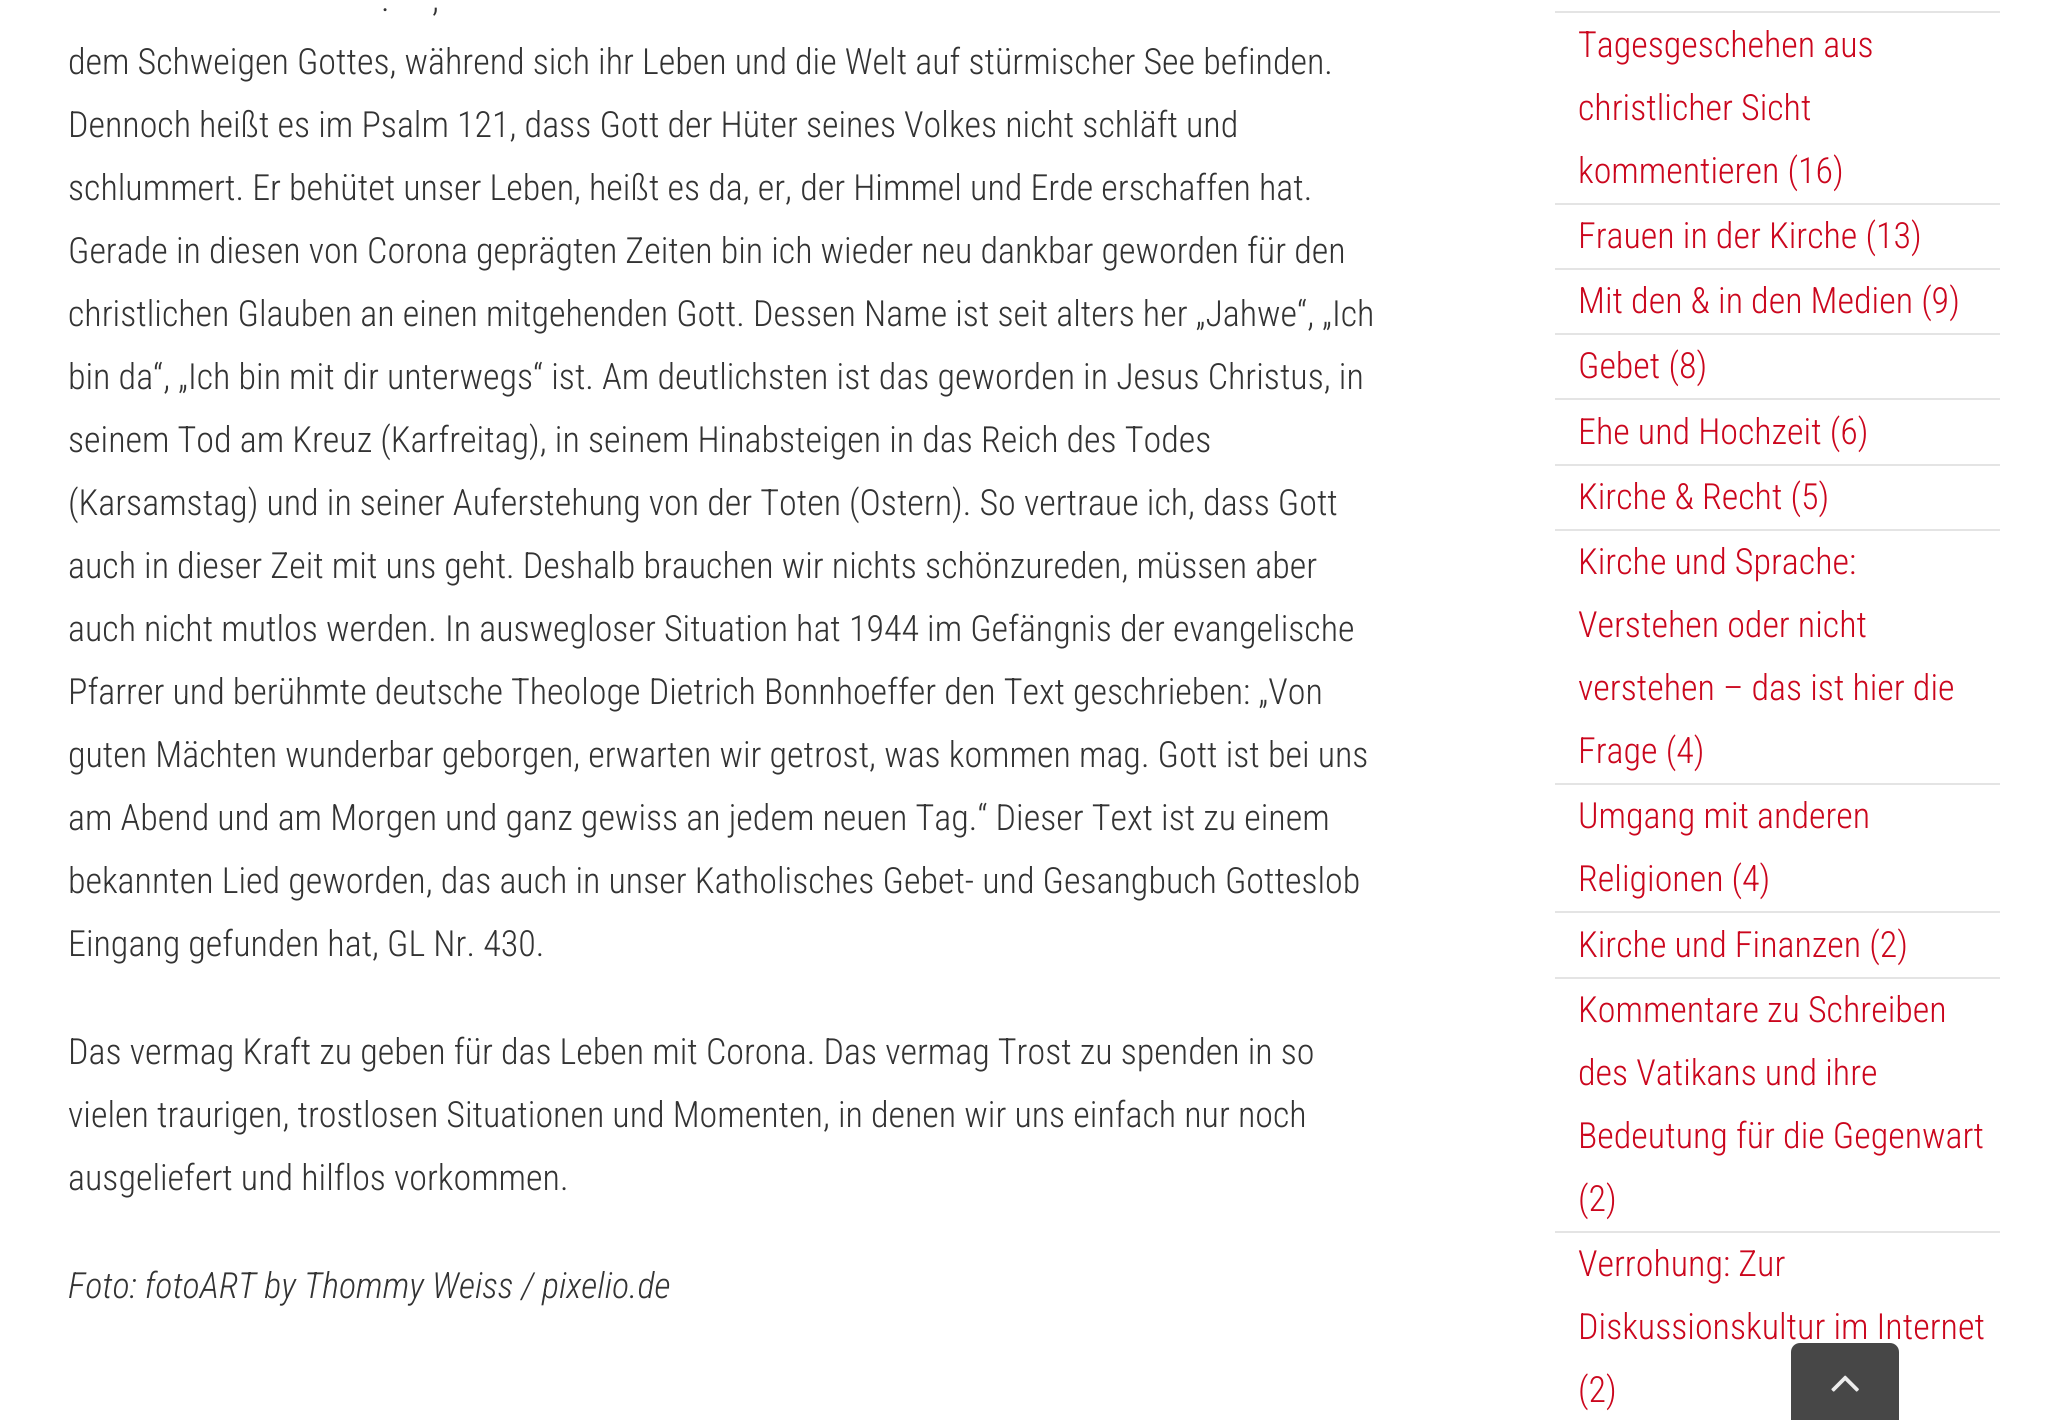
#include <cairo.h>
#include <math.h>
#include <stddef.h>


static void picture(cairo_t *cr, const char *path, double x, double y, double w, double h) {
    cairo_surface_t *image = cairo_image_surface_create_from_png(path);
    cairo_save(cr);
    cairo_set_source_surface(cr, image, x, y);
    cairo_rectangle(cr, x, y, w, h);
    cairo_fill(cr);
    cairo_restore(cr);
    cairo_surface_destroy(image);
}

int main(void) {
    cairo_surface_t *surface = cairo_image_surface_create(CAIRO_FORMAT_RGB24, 2067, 1420);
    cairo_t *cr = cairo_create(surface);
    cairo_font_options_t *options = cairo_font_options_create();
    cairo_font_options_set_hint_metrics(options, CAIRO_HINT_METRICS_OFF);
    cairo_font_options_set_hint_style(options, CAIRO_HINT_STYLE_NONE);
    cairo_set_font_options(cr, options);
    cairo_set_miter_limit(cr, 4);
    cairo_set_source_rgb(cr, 1, 1, 1);
    cairo_paint(cr);
    cairo_select_font_face(cr, "Roboto Condensed Light", CAIRO_FONT_SLANT_NORMAL, CAIRO_FONT_WEIGHT_NORMAL);
    cairo_set_font_size(cr, 36);
    cairo_set_source_rgb(cr, 0.2, 0.2, 0.2);
    cairo_move_to(cr, 381, 11);
    cairo_show_text(cr, ".");
    cairo_move_to(cr, 432, 11);
    cairo_show_text(cr, ",");
    cairo_move_to(cr, 68, 74);
    cairo_show_text(cr, "dem Schweigen Gottes, während sich ihr Leben und die Welt auf stürmischer See befinden.");
    cairo_move_to(cr, 68, 137);
    cairo_show_text(cr, "Dennoch heißt es im Psalm 121, dass Gott der Hüter seines Volkes nicht schläft und");
    cairo_move_to(cr, 68, 200);
    cairo_show_text(cr, "schlummert. Er behütet unser Leben, heißt es da, er, der Himmel und Erde erschaffen hat.");
    cairo_move_to(cr, 68, 263);
    cairo_show_text(cr, "Gerade in diesen von Corona geprägten Zeiten bin ich wieder neu dankbar geworden für den");
    cairo_move_to(cr, 68, 326);
    cairo_show_text(cr, "christlichen Glauben an einen mitgehenden Gott. Dessen Name ist seit alters her „Jahwe“, „Ich");
    cairo_move_to(cr, 68, 389);
    cairo_show_text(cr, "bin da“, „Ich bin mit dir unterwegs“ ist. Am deutlichsten ist das geworden in Jesus Christus, in");
    cairo_move_to(cr, 68, 452);
    cairo_show_text(cr, "seinem Tod am Kreuz (Karfreitag), in seinem Hinabsteigen in das Reich des Todes");
    cairo_move_to(cr, 68, 515);
    cairo_show_text(cr, "(Karsamstag) und in seiner Auferstehung von der Toten (Ostern). So vertraue ich, dass Gott");
    cairo_move_to(cr, 68, 578);
    cairo_show_text(cr, "auch in dieser Zeit mit uns geht. Deshalb brauchen wir nichts schönzureden, müssen aber");
    cairo_move_to(cr, 68, 641);
    cairo_show_text(cr, "auch nicht mutlos werden. In auswegloser Situation hat 1944 im Gefängnis der evangelische");
    cairo_move_to(cr, 68, 704);
    cairo_show_text(cr, "Pfarrer und berühmte deutsche Theologe Dietrich Bonnhoeffer den Text geschrieben: „Von");
    cairo_move_to(cr, 68, 767);
    cairo_show_text(cr, "guten Mächten wunderbar geborgen, erwarten wir getrost, was kommen mag. Gott ist bei uns");
    cairo_move_to(cr, 68, 830);
    cairo_show_text(cr, "am Abend und am Morgen und ganz gewiss an jedem neuen Tag.“ Dieser Text ist zu einem");
    cairo_move_to(cr, 68, 893);
    cairo_show_text(cr, "bekannten Lied geworden, das auch in unser Katholisches Gebet- und Gesangbuch Gotteslob");
    cairo_move_to(cr, 68, 956);
    cairo_show_text(cr, "Eingang gefunden hat, GL Nr. 430.");
    cairo_move_to(cr, 68, 1064);
    cairo_show_text(cr, "Das vermag Kraft zu geben für das Leben mit Corona. Das vermag Trost zu spenden in so");
    cairo_move_to(cr, 68, 1127);
    cairo_show_text(cr, "vielen traurigen, trostlosen Situationen und Momenten, in denen wir uns einfach nur noch");
    cairo_move_to(cr, 68, 1190);
    cairo_show_text(cr, "ausgeliefert und hilflos vorkommen.");
    cairo_select_font_face(cr, "Roboto Condensed Light", CAIRO_FONT_SLANT_ITALIC, CAIRO_FONT_WEIGHT_NORMAL);
    cairo_move_to(cr, 68, 1298);
    cairo_show_text(cr, "Foto: fotoART by Thommy Weiss / pixelio.de");
    cairo_set_source_rgb(cr, 0.894, 0.894, 0.894);
    cairo_rectangle(cr, 1555, 11, 445, 2);
    cairo_fill(cr);
    cairo_rectangle(cr, 1555, 203, 445, 2);
    cairo_fill(cr);
    cairo_select_font_face(cr, "Roboto Condensed Light", CAIRO_FONT_SLANT_NORMAL, CAIRO_FONT_WEIGHT_NORMAL);
    cairo_set_source_rgb(cr, 0.796, 0.024, 0.114);
    cairo_move_to(cr, 1578, 57);
    cairo_show_text(cr, "Tagesgeschehen aus");
    cairo_move_to(cr, 1578, 120);
    cairo_show_text(cr, "christlicher Sicht");
    cairo_move_to(cr, 1578, 183);
    cairo_show_text(cr, "kommentieren (16)");
    cairo_set_source_rgb(cr, 0.894, 0.894, 0.894);
    cairo_rectangle(cr, 1555, 268, 445, 2);
    cairo_fill(cr);
    cairo_set_source_rgb(cr, 0.796, 0.024, 0.114);
    cairo_move_to(cr, 1578, 248);
    cairo_show_text(cr, "Frauen in der Kirche (13)");
    cairo_set_source_rgb(cr, 0.894, 0.894, 0.894);
    cairo_rectangle(cr, 1555, 333, 445, 2);
    cairo_fill(cr);
    cairo_set_source_rgb(cr, 0.796, 0.024, 0.114);
    cairo_move_to(cr, 1578, 313);
    cairo_show_text(cr, "Mit den & in den Medien (9)");
    cairo_set_source_rgb(cr, 0.894, 0.894, 0.894);
    cairo_rectangle(cr, 1555, 398, 445, 2);
    cairo_fill(cr);
    cairo_set_source_rgb(cr, 0.796, 0.024, 0.114);
    cairo_move_to(cr, 1578, 378);
    cairo_show_text(cr, "Gebet (8)");
    cairo_set_source_rgb(cr, 0.894, 0.894, 0.894);
    cairo_rectangle(cr, 1555, 464, 445, 2);
    cairo_fill(cr);
    cairo_set_source_rgb(cr, 0.796, 0.024, 0.114);
    cairo_move_to(cr, 1578, 444);
    cairo_show_text(cr, "Ehe und Hochzeit (6)");
    cairo_set_source_rgb(cr, 0.894, 0.894, 0.894);
    cairo_rectangle(cr, 1555, 529, 445, 2);
    cairo_fill(cr);
    cairo_set_source_rgb(cr, 0.796, 0.024, 0.114);
    cairo_move_to(cr, 1578, 509);
    cairo_show_text(cr, "Kirche & Recht (5)");
    cairo_set_source_rgb(cr, 0.894, 0.894, 0.894);
    cairo_rectangle(cr, 1555, 783, 445, 2);
    cairo_fill(cr);
    cairo_set_source_rgb(cr, 0.796, 0.024, 0.114);
    cairo_move_to(cr, 1578, 574);
    cairo_show_text(cr, "Kirche und Sprache:");
    cairo_move_to(cr, 1578, 637);
    cairo_show_text(cr, "Verstehen oder nicht");
    cairo_move_to(cr, 1578, 700);
    cairo_show_text(cr, "verstehen – das ist hier die");
    cairo_move_to(cr, 1578, 763);
    cairo_show_text(cr, "Frage (4)");
    cairo_set_source_rgb(cr, 0.894, 0.894, 0.894);
    cairo_rectangle(cr, 1555, 911, 445, 2);
    cairo_fill(cr);
    cairo_set_source_rgb(cr, 0.796, 0.024, 0.114);
    cairo_move_to(cr, 1578, 828);
    cairo_show_text(cr, "Umgang mit anderen");
    cairo_move_to(cr, 1578, 891);
    cairo_show_text(cr, "Religionen (4)");
    cairo_set_source_rgb(cr, 0.894, 0.894, 0.894);
    cairo_rectangle(cr, 1555, 977, 445, 2);
    cairo_fill(cr);
    cairo_set_source_rgb(cr, 0.796, 0.024, 0.114);
    cairo_move_to(cr, 1578, 957);
    cairo_show_text(cr, "Kirche und Finanzen (2)");
    cairo_set_source_rgb(cr, 0.894, 0.894, 0.894);
    cairo_rectangle(cr, 1555, 1231, 445, 2);
    cairo_fill(cr);
    cairo_set_source_rgb(cr, 0.796, 0.024, 0.114);
    cairo_move_to(cr, 1578, 1022);
    cairo_show_text(cr, "Kommentare zu Schreiben");
    cairo_move_to(cr, 1578, 1085);
    cairo_show_text(cr, "des Vatikans und ihre");
    cairo_move_to(cr, 1578, 1148);
    cairo_show_text(cr, "Bedeutung für die Gegenwart");
    cairo_move_to(cr, 1578, 1211);
    cairo_show_text(cr, "(2)");
    cairo_move_to(cr, 1578, 1276);
    cairo_show_text(cr, "Verrohung: Zur");
    cairo_move_to(cr, 1578, 1339);
    cairo_show_text(cr, "Diskussionskultur im Internet");
    cairo_move_to(cr, 1578, 1402);
    cairo_show_text(cr, "(2)");
    cairo_set_source_rgb(cr, 0.278, 0.278, 0.278);
    cairo_new_path(cr);
    cairo_move_to(cr, 1800, 1343);
    cairo_line_to(cr, 1890, 1343);
    cairo_curve_to(cr, 1895, 1343, 1899, 1347, 1899, 1352);
    cairo_line_to(cr, 1899, 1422);
    cairo_line_to(cr, 1791, 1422);
    cairo_line_to(cr, 1791, 1352);
    cairo_curve_to(cr, 1791, 1347, 1795, 1343, 1800, 1343);
    cairo_close_path(cr);
    cairo_fill(cr);
    picture(cr, "img1.png", 1831, 1375, 28, 17);
    cairo_surface_write_to_png(surface, "page.png");
    cairo_font_options_destroy(options);
    cairo_destroy(cr);
    cairo_surface_destroy(surface);
    return 0;
}
